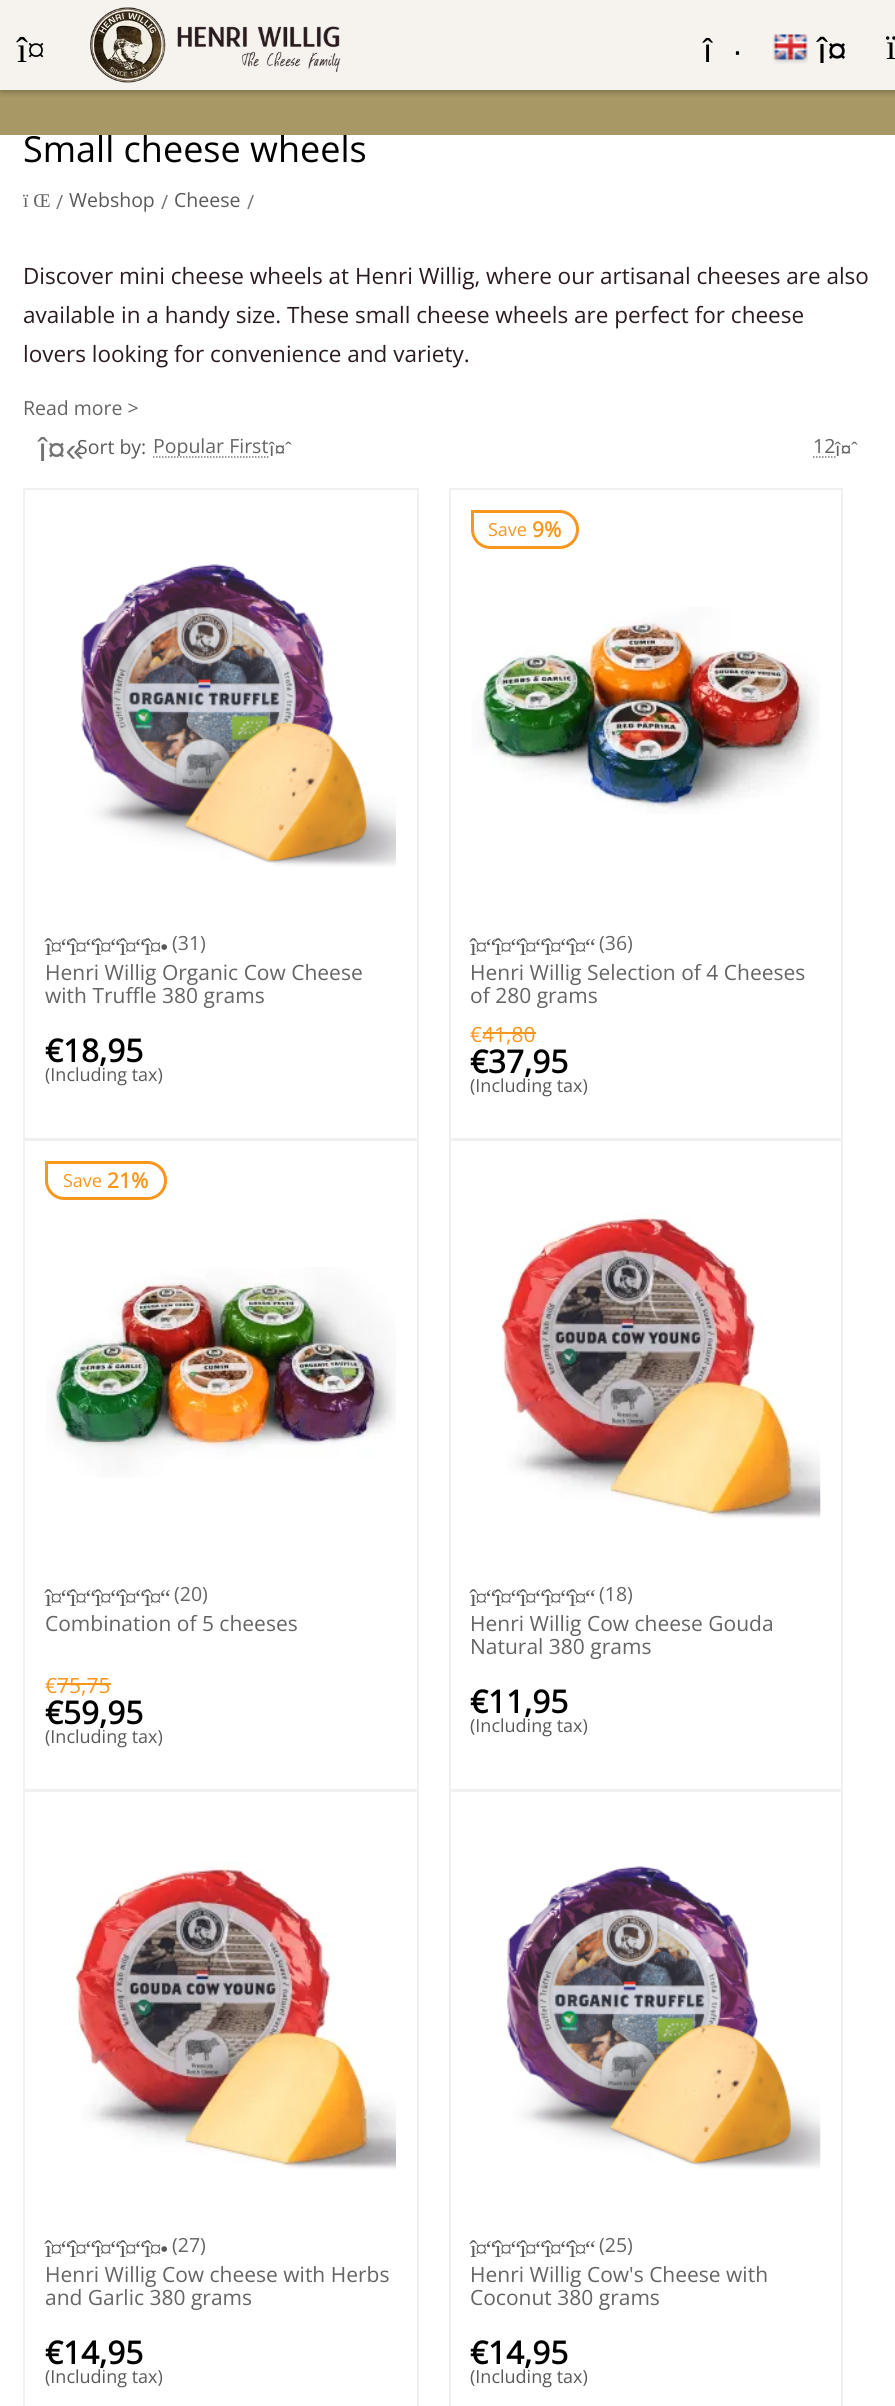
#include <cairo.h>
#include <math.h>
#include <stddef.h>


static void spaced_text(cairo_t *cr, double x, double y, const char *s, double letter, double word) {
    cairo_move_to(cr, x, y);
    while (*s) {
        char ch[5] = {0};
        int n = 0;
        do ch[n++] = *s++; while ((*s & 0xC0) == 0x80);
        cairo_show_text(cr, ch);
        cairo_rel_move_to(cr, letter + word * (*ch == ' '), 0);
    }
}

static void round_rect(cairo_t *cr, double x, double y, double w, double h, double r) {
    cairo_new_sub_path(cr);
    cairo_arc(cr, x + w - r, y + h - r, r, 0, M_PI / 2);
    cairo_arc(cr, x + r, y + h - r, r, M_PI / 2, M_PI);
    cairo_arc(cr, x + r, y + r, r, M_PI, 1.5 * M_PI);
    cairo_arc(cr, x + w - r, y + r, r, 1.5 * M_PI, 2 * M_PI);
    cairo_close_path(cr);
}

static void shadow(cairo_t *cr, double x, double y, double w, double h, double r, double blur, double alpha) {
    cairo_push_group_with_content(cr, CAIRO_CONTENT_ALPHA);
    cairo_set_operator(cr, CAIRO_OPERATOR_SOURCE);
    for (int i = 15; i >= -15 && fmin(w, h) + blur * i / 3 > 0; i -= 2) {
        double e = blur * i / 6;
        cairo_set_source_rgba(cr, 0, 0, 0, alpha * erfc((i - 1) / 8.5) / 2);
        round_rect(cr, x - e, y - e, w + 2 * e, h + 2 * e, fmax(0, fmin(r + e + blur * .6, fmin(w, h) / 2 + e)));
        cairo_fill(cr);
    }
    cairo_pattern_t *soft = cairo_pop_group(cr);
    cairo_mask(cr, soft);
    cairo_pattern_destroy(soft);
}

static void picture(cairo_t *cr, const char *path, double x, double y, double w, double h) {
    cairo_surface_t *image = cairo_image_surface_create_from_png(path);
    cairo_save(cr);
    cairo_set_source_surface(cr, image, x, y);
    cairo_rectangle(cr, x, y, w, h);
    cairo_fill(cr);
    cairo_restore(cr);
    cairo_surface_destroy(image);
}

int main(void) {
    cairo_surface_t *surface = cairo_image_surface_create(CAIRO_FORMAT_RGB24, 895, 2406);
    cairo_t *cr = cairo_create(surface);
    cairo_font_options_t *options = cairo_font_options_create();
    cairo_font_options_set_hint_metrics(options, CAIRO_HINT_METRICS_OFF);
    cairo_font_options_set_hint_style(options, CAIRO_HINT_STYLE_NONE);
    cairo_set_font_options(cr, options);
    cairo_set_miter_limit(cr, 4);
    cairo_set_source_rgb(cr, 1, 1, 1);
    cairo_paint(cr);
    cairo_set_source_rgb(cr, 0.961, 0.953, 0.937);
    cairo_rectangle(cr, 0, 0, 895, 90);
    cairo_fill(cr);
    cairo_select_font_face(cr, "Open Sans", CAIRO_FONT_SLANT_NORMAL, CAIRO_FONT_WEIGHT_NORMAL);
    cairo_set_font_size(cr, 36);
    cairo_set_source_rgb(cr, 0, 0, 0);
    cairo_move_to(cr, 23, 162);
    cairo_show_text(cr, "Small cheese wheels");
    cairo_set_source_rgb(cr, 0.655, 0.596, 0.396);
    cairo_rectangle(cr, 0, 90, 895, 45);
    cairo_fill(cr);
    cairo_save(cr);
    cairo_rectangle(cr, 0, 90, 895, 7);
    cairo_clip(cr);
    cairo_set_source_rgb(cr, 0, 0, 0);
    shadow(cr, 0, 5, 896, 90, 0, 2, 0.1);
    cairo_restore(cr);
    cairo_save(cr);
    cairo_rectangle(cr, 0, 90, 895, 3);
    cairo_clip(cr);
    cairo_set_source_rgb(cr, 0, 0, 0);
    shadow(cr, 0, 2, 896, 90, 0, 1, 0.1);
    cairo_restore(cr);
    cairo_select_font_face(cr, "Liberation Serif", CAIRO_FONT_SLANT_NORMAL, CAIRO_FONT_WEIGHT_NORMAL);
    cairo_set_source_rgb(cr, 0, 0, 0);
    cairo_move_to(cr, 17, 62);
    cairo_show_text(cr, "î¤");
    picture(cr, "img1.png", 90, 7, 251, 76);
    cairo_select_font_face(cr, "Liberation Sans", CAIRO_FONT_SLANT_NORMAL, CAIRO_FONT_WEIGHT_NORMAL);
    cairo_set_font_size(cr, 33);
    cairo_move_to(cr, 703, 62);
    cairo_show_text(cr, "î");
    cairo_move_to(cr, 732, 62);
    cairo_show_text(cr, "·");
    picture(cr, "img2.png", 773, 34, 35, 30);
    cairo_set_font_size(cr, 36);
    cairo_move_to(cr, 817, 63);
    cairo_show_text(cr, "î¤");
    cairo_select_font_face(cr, "Liberation Serif", CAIRO_FONT_SLANT_NORMAL, CAIRO_FONT_WEIGHT_NORMAL);
    cairo_move_to(cr, 886, 59);
    cairo_show_text(cr, "ï");
    cairo_set_font_size(cr, 19.5);
    cairo_set_source_rgb(cr, 0.392, 0.392, 0.392);
    cairo_move_to(cr, 23, 207);
    cairo_show_text(cr, "ï Œ");
    cairo_select_font_face(cr, "Open Sans", CAIRO_FONT_SLANT_NORMAL, CAIRO_FONT_WEIGHT_NORMAL);
    cairo_set_source_rgb(cr, 0.451, 0.451, 0.451);
    cairo_move_to(cr, 56, 209);
    cairo_show_text(cr, "/");
    cairo_set_source_rgb(cr, 0.349, 0.349, 0.349);
    cairo_move_to(cr, 69, 207);
    cairo_show_text(cr, "Webshop");
    cairo_set_source_rgb(cr, 0.451, 0.451, 0.451);
    cairo_move_to(cr, 161, 209);
    cairo_show_text(cr, "/");
    cairo_set_source_rgb(cr, 0.349, 0.349, 0.349);
    cairo_move_to(cr, 174, 207);
    cairo_show_text(cr, "Cheese");
    cairo_set_source_rgb(cr, 0.451, 0.451, 0.451);
    cairo_move_to(cr, 247, 209);
    cairo_show_text(cr, "/");
    cairo_set_font_size(cr, 22.5);
    cairo_set_source_rgb(cr, 0.165, 0.106, 0.125);
    cairo_move_to(cr, 23, 284);
    cairo_show_text(cr, "Discover mini cheese wheels at Henri Willig, where our artisanal cheeses are also");
    cairo_move_to(cr, 23, 323);
    cairo_show_text(cr, "available in a handy size. These small cheese wheels are perfect for cheese");
    cairo_move_to(cr, 23, 362);
    cairo_show_text(cr, "lovers looking for convenience and variety.");
    cairo_set_font_size(cr, 19.5);
    cairo_set_source_rgb(cr, 0.392, 0.392, 0.392);
    cairo_move_to(cr, 23, 415);
    cairo_show_text(cr, "Read more >");
    cairo_set_source_rgb(cr, 0.349, 0.349, 0.349);
    cairo_move_to(cr, 77, 454);
    cairo_show_text(cr, "Sort by:");
    cairo_select_font_face(cr, "Liberation Sans", CAIRO_FONT_SLANT_NORMAL, CAIRO_FONT_WEIGHT_NORMAL);
    cairo_set_font_size(cr, 33);
    cairo_set_source_rgb(cr, 0.451, 0.451, 0.451);
    cairo_move_to(cr, 38, 461);
    cairo_show_text(cr, "î¤«");
    cairo_new_path(cr);
    cairo_move_to(cr, 153, 457);
    cairo_line_to(cr, 268.5, 457);
    cairo_set_source_rgb(cr, 0.494, 0.494, 0.494);
    cairo_set_line_width(cr, 1.5);
    cairo_set_dash(cr, (double[]){1.5, 1.5}, 2, 0);
    cairo_stroke(cr);
    cairo_set_font_size(cr, 19.5);
    cairo_set_source_rgb(cr, 0.392, 0.392, 0.392);
    cairo_move_to(cr, 269, 456);
    cairo_show_text(cr, "î¤ˆ");
    cairo_save(cr);
    cairo_rectangle(cr, 153, 437, 116, 19);
    cairo_clip(cr);
    cairo_select_font_face(cr, "Open Sans", CAIRO_FONT_SLANT_NORMAL, CAIRO_FONT_WEIGHT_NORMAL);
    cairo_move_to(cr, 153, 453);
    cairo_show_text(cr, "Popular First");
    cairo_restore(cr);
    cairo_new_path(cr);
    cairo_move_to(cr, 813, 457);
    cairo_line_to(cr, 835.5, 457);
    cairo_set_source_rgb(cr, 0.494, 0.494, 0.494);
    cairo_stroke(cr);
    cairo_set_source_rgb(cr, 0.392, 0.392, 0.392);
    cairo_move_to(cr, 835, 456);
    cairo_show_text(cr, "î¤ˆ");
    cairo_select_font_face(cr, "Open Sans", CAIRO_FONT_SLANT_NORMAL, CAIRO_FONT_WEIGHT_NORMAL);
    cairo_move_to(cr, 813, 453);
    cairo_show_text(cr, "12");
    cairo_rectangle(cr, 24, 489, 394, 650);
    cairo_set_source_rgb(cr, 0.941, 0.941, 0.941);
    cairo_set_line_width(cr, 2);
    cairo_set_dash(cr, NULL, 0, 0);
    cairo_stroke(cr);
    picture(cr, "img3.png", 81, 564, 315, 303);
    cairo_select_font_face(cr, "Liberation Serif", CAIRO_FONT_SLANT_NORMAL, CAIRO_FONT_WEIGHT_NORMAL);
    cairo_set_font_size(cr, 24);
    cairo_set_source_rgb(cr, 0.349, 0.349, 0.349);
    spaced_text(cr, 45, 955, "î¤“î¤“î¤“î¤“î¤•", -1.5, 0);
    cairo_select_font_face(cr, "Open Sans", CAIRO_FONT_SLANT_NORMAL, CAIRO_FONT_WEIGHT_NORMAL);
    cairo_set_font_size(cr, 19.5);
    cairo_set_source_rgb(cr, 0.392, 0.392, 0.392);
    cairo_move_to(cr, 172, 950);
    cairo_show_text(cr, "(31)");
    cairo_set_font_size(cr, 21);
    cairo_move_to(cr, 45, 980);
    cairo_show_text(cr, "Henri Willig Organic Cow Cheese");
    cairo_move_to(cr, 45, 1003);
    cairo_show_text(cr, "with Truffle 380 grams");
    cairo_select_font_face(cr, "Open Sans", CAIRO_FONT_SLANT_NORMAL, CAIRO_FONT_WEIGHT_BOLD);
    cairo_set_font_size(cr, 31.5);
    cairo_set_source_rgb(cr, 0, 0, 0);
    cairo_move_to(cr, 45, 1062);
    cairo_show_text(cr, "€18,95");
    cairo_select_font_face(cr, "Open Sans", CAIRO_FONT_SLANT_NORMAL, CAIRO_FONT_WEIGHT_NORMAL);
    cairo_set_font_size(cr, 18);
    cairo_set_source_rgb(cr, 0.349, 0.349, 0.349);
    cairo_move_to(cr, 45, 1081);
    cairo_show_text(cr, "(Including tax)");
    cairo_rectangle(cr, 450, 489, 392, 650);
    cairo_set_source_rgb(cr, 0.941, 0.941, 0.941);
    cairo_stroke(cr);
    cairo_new_path(cr);
    cairo_move_to(cr, 472.5, 511.5);
    cairo_line_to(cr, 559.5, 511.5);
    cairo_curve_to(cr, 569.5, 511.5, 577.5, 519.5, 577.5, 529.5);
    cairo_curve_to(cr, 577.5, 539.5, 569.5, 547.5, 559.5, 547.5);
    cairo_line_to(cr, 490.5, 547.5);
    cairo_curve_to(cr, 480.5, 547.5, 472.5, 539.5, 472.5, 529.5);
    cairo_close_path(cr);
    cairo_set_source_rgb(cr, 0.973, 0.588, 0.114);
    cairo_set_line_width(cr, 3);
    cairo_stroke(cr);
    cairo_move_to(cr, 488, 536);
    cairo_show_text(cr, "Save");
    cairo_select_font_face(cr, "Open Sans", CAIRO_FONT_SLANT_NORMAL, CAIRO_FONT_WEIGHT_BOLD);
    cairo_set_font_size(cr, 21);
    cairo_move_to(cr, 532, 537);
    cairo_show_text(cr, "9%");
    picture(cr, "img4.png", 471, 607, 349, 207);
    cairo_select_font_face(cr, "Liberation Serif", CAIRO_FONT_SLANT_NORMAL, CAIRO_FONT_WEIGHT_NORMAL);
    cairo_set_font_size(cr, 24);
    cairo_set_source_rgb(cr, 0.349, 0.349, 0.349);
    spaced_text(cr, 470, 955, "î¤“î¤“î¤“î¤“î¤“", -1.5, 0);
    cairo_select_font_face(cr, "Open Sans", CAIRO_FONT_SLANT_NORMAL, CAIRO_FONT_WEIGHT_NORMAL);
    cairo_set_font_size(cr, 19.5);
    cairo_set_source_rgb(cr, 0.392, 0.392, 0.392);
    cairo_move_to(cr, 599, 950);
    cairo_show_text(cr, "(36)");
    cairo_set_font_size(cr, 21);
    cairo_move_to(cr, 470, 980);
    cairo_show_text(cr, "Henri Willig Selection of 4 Cheeses");
    cairo_move_to(cr, 470, 1003);
    cairo_show_text(cr, "of 280 grams");
    cairo_set_source_rgb(cr, 0.973, 0.588, 0.114);
    cairo_move_to(cr, 470, 1042);
    cairo_show_text(cr, "€41,80");
    cairo_rectangle(cr, 483, 1032, 53, 2);
    cairo_fill(cr);
    cairo_select_font_face(cr, "Open Sans", CAIRO_FONT_SLANT_NORMAL, CAIRO_FONT_WEIGHT_BOLD);
    cairo_set_font_size(cr, 31.5);
    cairo_set_source_rgb(cr, 0, 0, 0);
    cairo_move_to(cr, 470, 1073);
    cairo_show_text(cr, "€37,95");
    cairo_select_font_face(cr, "Open Sans", CAIRO_FONT_SLANT_NORMAL, CAIRO_FONT_WEIGHT_NORMAL);
    cairo_set_font_size(cr, 18);
    cairo_set_source_rgb(cr, 0.349, 0.349, 0.349);
    cairo_move_to(cr, 470, 1092);
    cairo_show_text(cr, "(Including tax)");
    cairo_rectangle(cr, 24, 1140, 394, 650);
    cairo_set_source_rgb(cr, 0.941, 0.941, 0.941);
    cairo_set_line_width(cr, 2);
    cairo_stroke(cr);
    cairo_new_path(cr);
    cairo_move_to(cr, 46.5, 1162.5);
    cairo_line_to(cr, 147.5, 1162.5);
    cairo_curve_to(cr, 157.5, 1162.5, 165.5, 1170.5, 165.5, 1180.5);
    cairo_curve_to(cr, 165.5, 1190.5, 157.5, 1198.5, 147.5, 1198.5);
    cairo_line_to(cr, 64.5, 1198.5);
    cairo_curve_to(cr, 54.5, 1198.5, 46.5, 1190.5, 46.5, 1180.5);
    cairo_close_path(cr);
    cairo_set_source_rgb(cr, 0.973, 0.588, 0.114);
    cairo_set_line_width(cr, 3);
    cairo_stroke(cr);
    cairo_move_to(cr, 63, 1187);
    cairo_show_text(cr, "Save");
    cairo_select_font_face(cr, "Open Sans", CAIRO_FONT_SLANT_NORMAL, CAIRO_FONT_WEIGHT_BOLD);
    cairo_set_font_size(cr, 21);
    cairo_move_to(cr, 107, 1188);
    cairo_show_text(cr, "21%");
    picture(cr, "img5.png", 46, 1267, 350, 211);
    cairo_select_font_face(cr, "Liberation Serif", CAIRO_FONT_SLANT_NORMAL, CAIRO_FONT_WEIGHT_NORMAL);
    cairo_set_font_size(cr, 24);
    cairo_set_source_rgb(cr, 0.349, 0.349, 0.349);
    spaced_text(cr, 45, 1606, "î¤“î¤“î¤“î¤“î¤“", -1.5, 0);
    cairo_select_font_face(cr, "Open Sans", CAIRO_FONT_SLANT_NORMAL, CAIRO_FONT_WEIGHT_NORMAL);
    cairo_set_font_size(cr, 19.5);
    cairo_set_source_rgb(cr, 0.392, 0.392, 0.392);
    cairo_move_to(cr, 174, 1601);
    cairo_show_text(cr, "(20)");
    cairo_set_font_size(cr, 21);
    cairo_move_to(cr, 45, 1631);
    cairo_show_text(cr, "Combination of 5 cheeses");
    cairo_set_source_rgb(cr, 0.973, 0.588, 0.114);
    cairo_move_to(cr, 45, 1693);
    cairo_show_text(cr, "€75,75");
    cairo_rectangle(cr, 57, 1683, 54, 2);
    cairo_fill(cr);
    cairo_select_font_face(cr, "Open Sans", CAIRO_FONT_SLANT_NORMAL, CAIRO_FONT_WEIGHT_BOLD);
    cairo_set_font_size(cr, 31.5);
    cairo_set_source_rgb(cr, 0, 0, 0);
    cairo_move_to(cr, 45, 1724);
    cairo_show_text(cr, "€59,95");
    cairo_select_font_face(cr, "Open Sans", CAIRO_FONT_SLANT_NORMAL, CAIRO_FONT_WEIGHT_NORMAL);
    cairo_set_font_size(cr, 18);
    cairo_set_source_rgb(cr, 0.349, 0.349, 0.349);
    cairo_move_to(cr, 45, 1743);
    cairo_show_text(cr, "(Including tax)");
    cairo_rectangle(cr, 450, 1140, 392, 650);
    cairo_set_source_rgb(cr, 0.941, 0.941, 0.941);
    cairo_set_line_width(cr, 2);
    cairo_stroke(cr);
    picture(cr, "img6.png", 501, 1210, 320, 309);
    cairo_select_font_face(cr, "Liberation Serif", CAIRO_FONT_SLANT_NORMAL, CAIRO_FONT_WEIGHT_NORMAL);
    cairo_set_font_size(cr, 24);
    cairo_set_source_rgb(cr, 0.349, 0.349, 0.349);
    spaced_text(cr, 470, 1606, "î¤“î¤“î¤“î¤“î¤“", -1.5, 0);
    cairo_select_font_face(cr, "Open Sans", CAIRO_FONT_SLANT_NORMAL, CAIRO_FONT_WEIGHT_NORMAL);
    cairo_set_font_size(cr, 19.5);
    cairo_set_source_rgb(cr, 0.392, 0.392, 0.392);
    cairo_move_to(cr, 599, 1601);
    cairo_show_text(cr, "(18)");
    cairo_set_font_size(cr, 21);
    cairo_move_to(cr, 470, 1631);
    cairo_show_text(cr, "Henri Willig Cow cheese Gouda");
    cairo_move_to(cr, 470, 1654);
    cairo_show_text(cr, "Natural 380 grams");
    cairo_select_font_face(cr, "Open Sans", CAIRO_FONT_SLANT_NORMAL, CAIRO_FONT_WEIGHT_BOLD);
    cairo_set_font_size(cr, 31.5);
    cairo_set_source_rgb(cr, 0, 0, 0);
    cairo_move_to(cr, 470, 1713);
    cairo_show_text(cr, "€11,95");
    cairo_select_font_face(cr, "Open Sans", CAIRO_FONT_SLANT_NORMAL, CAIRO_FONT_WEIGHT_NORMAL);
    cairo_set_font_size(cr, 18);
    cairo_set_source_rgb(cr, 0.349, 0.349, 0.349);
    cairo_move_to(cr, 470, 1732);
    cairo_show_text(cr, "(Including tax)");
    cairo_rectangle(cr, 24, 1791, 394, 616);
    cairo_set_source_rgb(cr, 0.941, 0.941, 0.941);
    cairo_stroke(cr);
    picture(cr, "img7.png", 75, 1861, 321, 309);
    cairo_select_font_face(cr, "Liberation Serif", CAIRO_FONT_SLANT_NORMAL, CAIRO_FONT_WEIGHT_NORMAL);
    cairo_set_font_size(cr, 24);
    cairo_set_source_rgb(cr, 0.349, 0.349, 0.349);
    spaced_text(cr, 45, 2257, "î¤“î¤“î¤“î¤“î¤•", -1.5, 0);
    cairo_select_font_face(cr, "Open Sans", CAIRO_FONT_SLANT_NORMAL, CAIRO_FONT_WEIGHT_NORMAL);
    cairo_set_font_size(cr, 19.5);
    cairo_set_source_rgb(cr, 0.392, 0.392, 0.392);
    cairo_move_to(cr, 172, 2252);
    cairo_show_text(cr, "(27)");
    cairo_set_font_size(cr, 21);
    cairo_move_to(cr, 45, 2282);
    cairo_show_text(cr, "Henri Willig Cow cheese with Herbs");
    cairo_move_to(cr, 45, 2305);
    cairo_show_text(cr, "and Garlic 380 grams");
    cairo_select_font_face(cr, "Open Sans", CAIRO_FONT_SLANT_NORMAL, CAIRO_FONT_WEIGHT_BOLD);
    cairo_set_font_size(cr, 31.5);
    cairo_set_source_rgb(cr, 0, 0, 0);
    cairo_move_to(cr, 45, 2364);
    cairo_show_text(cr, "€14,95");
    cairo_select_font_face(cr, "Open Sans", CAIRO_FONT_SLANT_NORMAL, CAIRO_FONT_WEIGHT_NORMAL);
    cairo_set_font_size(cr, 18);
    cairo_set_source_rgb(cr, 0.349, 0.349, 0.349);
    cairo_move_to(cr, 45, 2383);
    cairo_show_text(cr, "(Including tax)");
    cairo_rectangle(cr, 450, 1791, 392, 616);
    cairo_set_source_rgb(cr, 0.941, 0.941, 0.941);
    cairo_stroke(cr);
    picture(cr, "img8.png", 507, 1866, 314, 303);
    cairo_select_font_face(cr, "Liberation Serif", CAIRO_FONT_SLANT_NORMAL, CAIRO_FONT_WEIGHT_NORMAL);
    cairo_set_font_size(cr, 24);
    cairo_set_source_rgb(cr, 0.349, 0.349, 0.349);
    spaced_text(cr, 470, 2257, "î¤“î¤“î¤“î¤“î¤“", -1.5, 0);
    cairo_select_font_face(cr, "Open Sans", CAIRO_FONT_SLANT_NORMAL, CAIRO_FONT_WEIGHT_NORMAL);
    cairo_set_font_size(cr, 19.5);
    cairo_set_source_rgb(cr, 0.392, 0.392, 0.392);
    cairo_move_to(cr, 599, 2252);
    cairo_show_text(cr, "(25)");
    cairo_set_font_size(cr, 21);
    cairo_move_to(cr, 470, 2282);
    cairo_show_text(cr, "Henri Willig Cow's Cheese with");
    cairo_move_to(cr, 470, 2305);
    cairo_show_text(cr, "Coconut 380 grams");
    cairo_select_font_face(cr, "Open Sans", CAIRO_FONT_SLANT_NORMAL, CAIRO_FONT_WEIGHT_BOLD);
    cairo_set_font_size(cr, 31.5);
    cairo_set_source_rgb(cr, 0, 0, 0);
    cairo_move_to(cr, 470, 2364);
    cairo_show_text(cr, "€14,95");
    cairo_select_font_face(cr, "Open Sans", CAIRO_FONT_SLANT_NORMAL, CAIRO_FONT_WEIGHT_NORMAL);
    cairo_set_font_size(cr, 18);
    cairo_set_source_rgb(cr, 0.349, 0.349, 0.349);
    cairo_move_to(cr, 470, 2383);
    cairo_show_text(cr, "(Including tax)");
    cairo_surface_write_to_png(surface, "page.png");
    cairo_font_options_destroy(options);
    cairo_destroy(cr);
    cairo_surface_destroy(surface);
    return 0;
}
